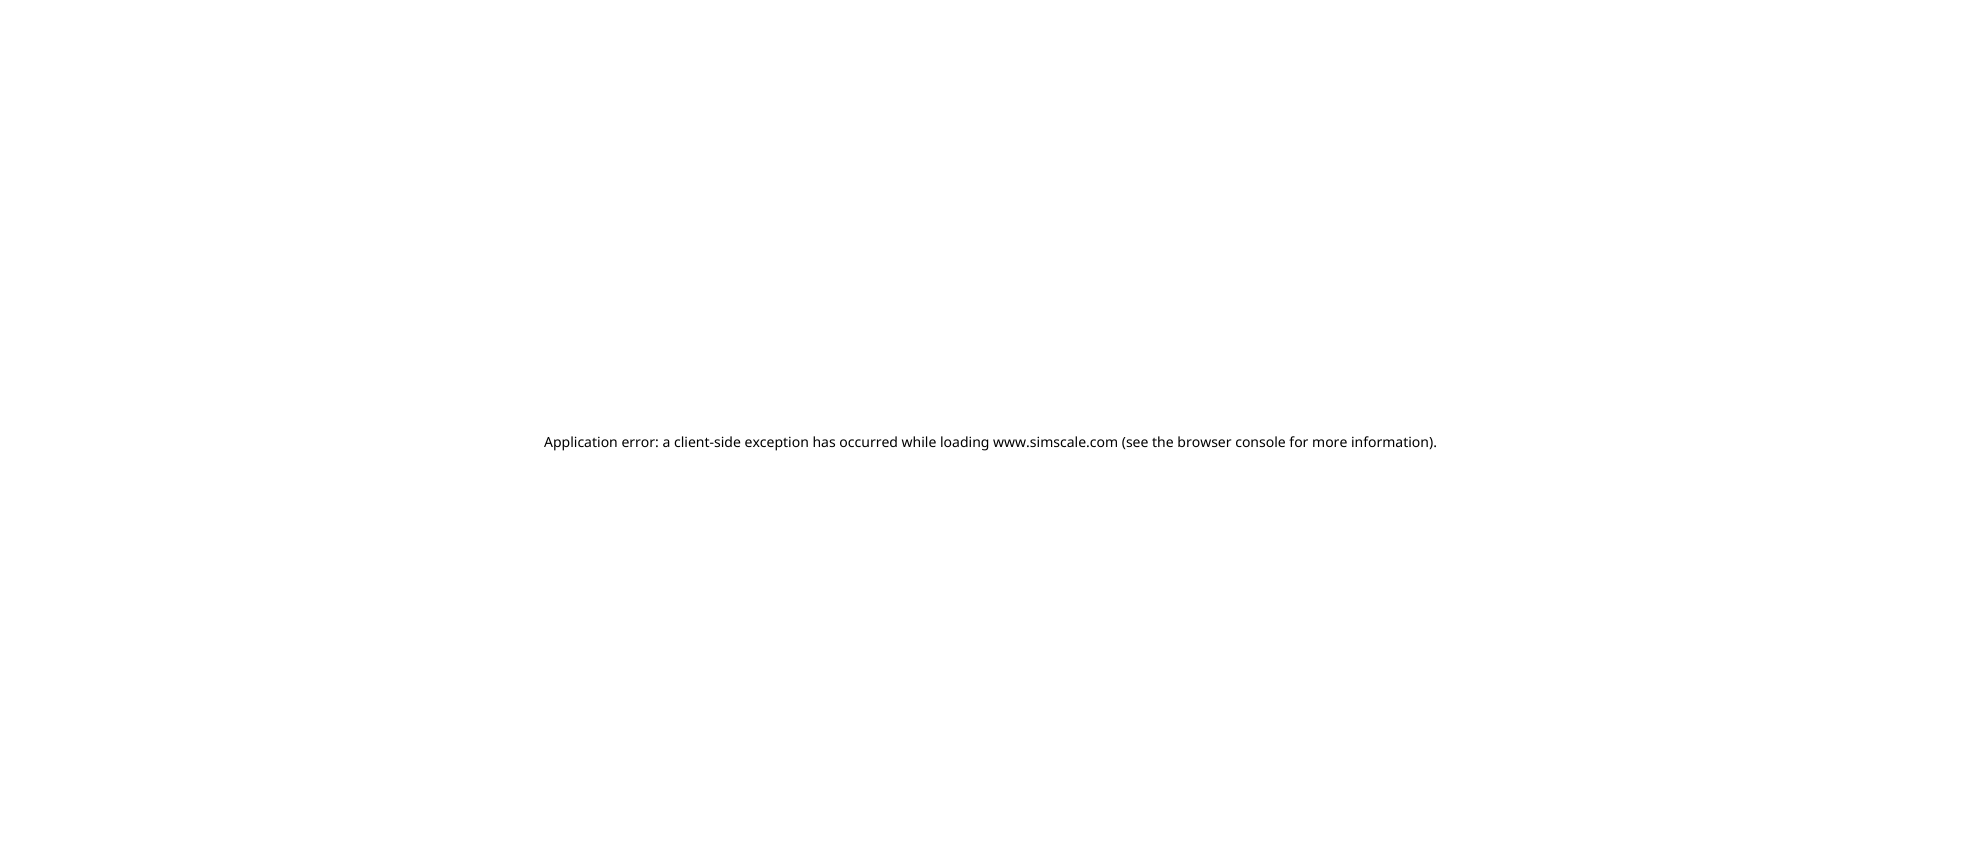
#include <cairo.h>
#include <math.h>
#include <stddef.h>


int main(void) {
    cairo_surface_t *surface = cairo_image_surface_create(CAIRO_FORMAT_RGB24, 1981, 867);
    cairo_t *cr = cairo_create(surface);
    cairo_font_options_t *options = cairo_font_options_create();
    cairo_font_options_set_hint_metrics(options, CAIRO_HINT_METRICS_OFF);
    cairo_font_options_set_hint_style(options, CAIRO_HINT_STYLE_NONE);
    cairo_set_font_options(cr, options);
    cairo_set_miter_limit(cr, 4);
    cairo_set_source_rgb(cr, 1, 1, 1);
    cairo_paint(cr);
    cairo_select_font_face(cr, "Noto Sans", CAIRO_FONT_SLANT_NORMAL, CAIRO_FONT_WEIGHT_NORMAL);
    cairo_set_font_size(cr, 14);
    cairo_set_source_rgb(cr, 0, 0, 0);
    cairo_move_to(cr, 544, 447);
    cairo_show_text(cr, "Application error: a client-side exception has occurred while loading www.simscale.com (see the browser console for more information).");
    cairo_surface_write_to_png(surface, "page.png");
    cairo_font_options_destroy(options);
    cairo_destroy(cr);
    cairo_surface_destroy(surface);
    return 0;
}
